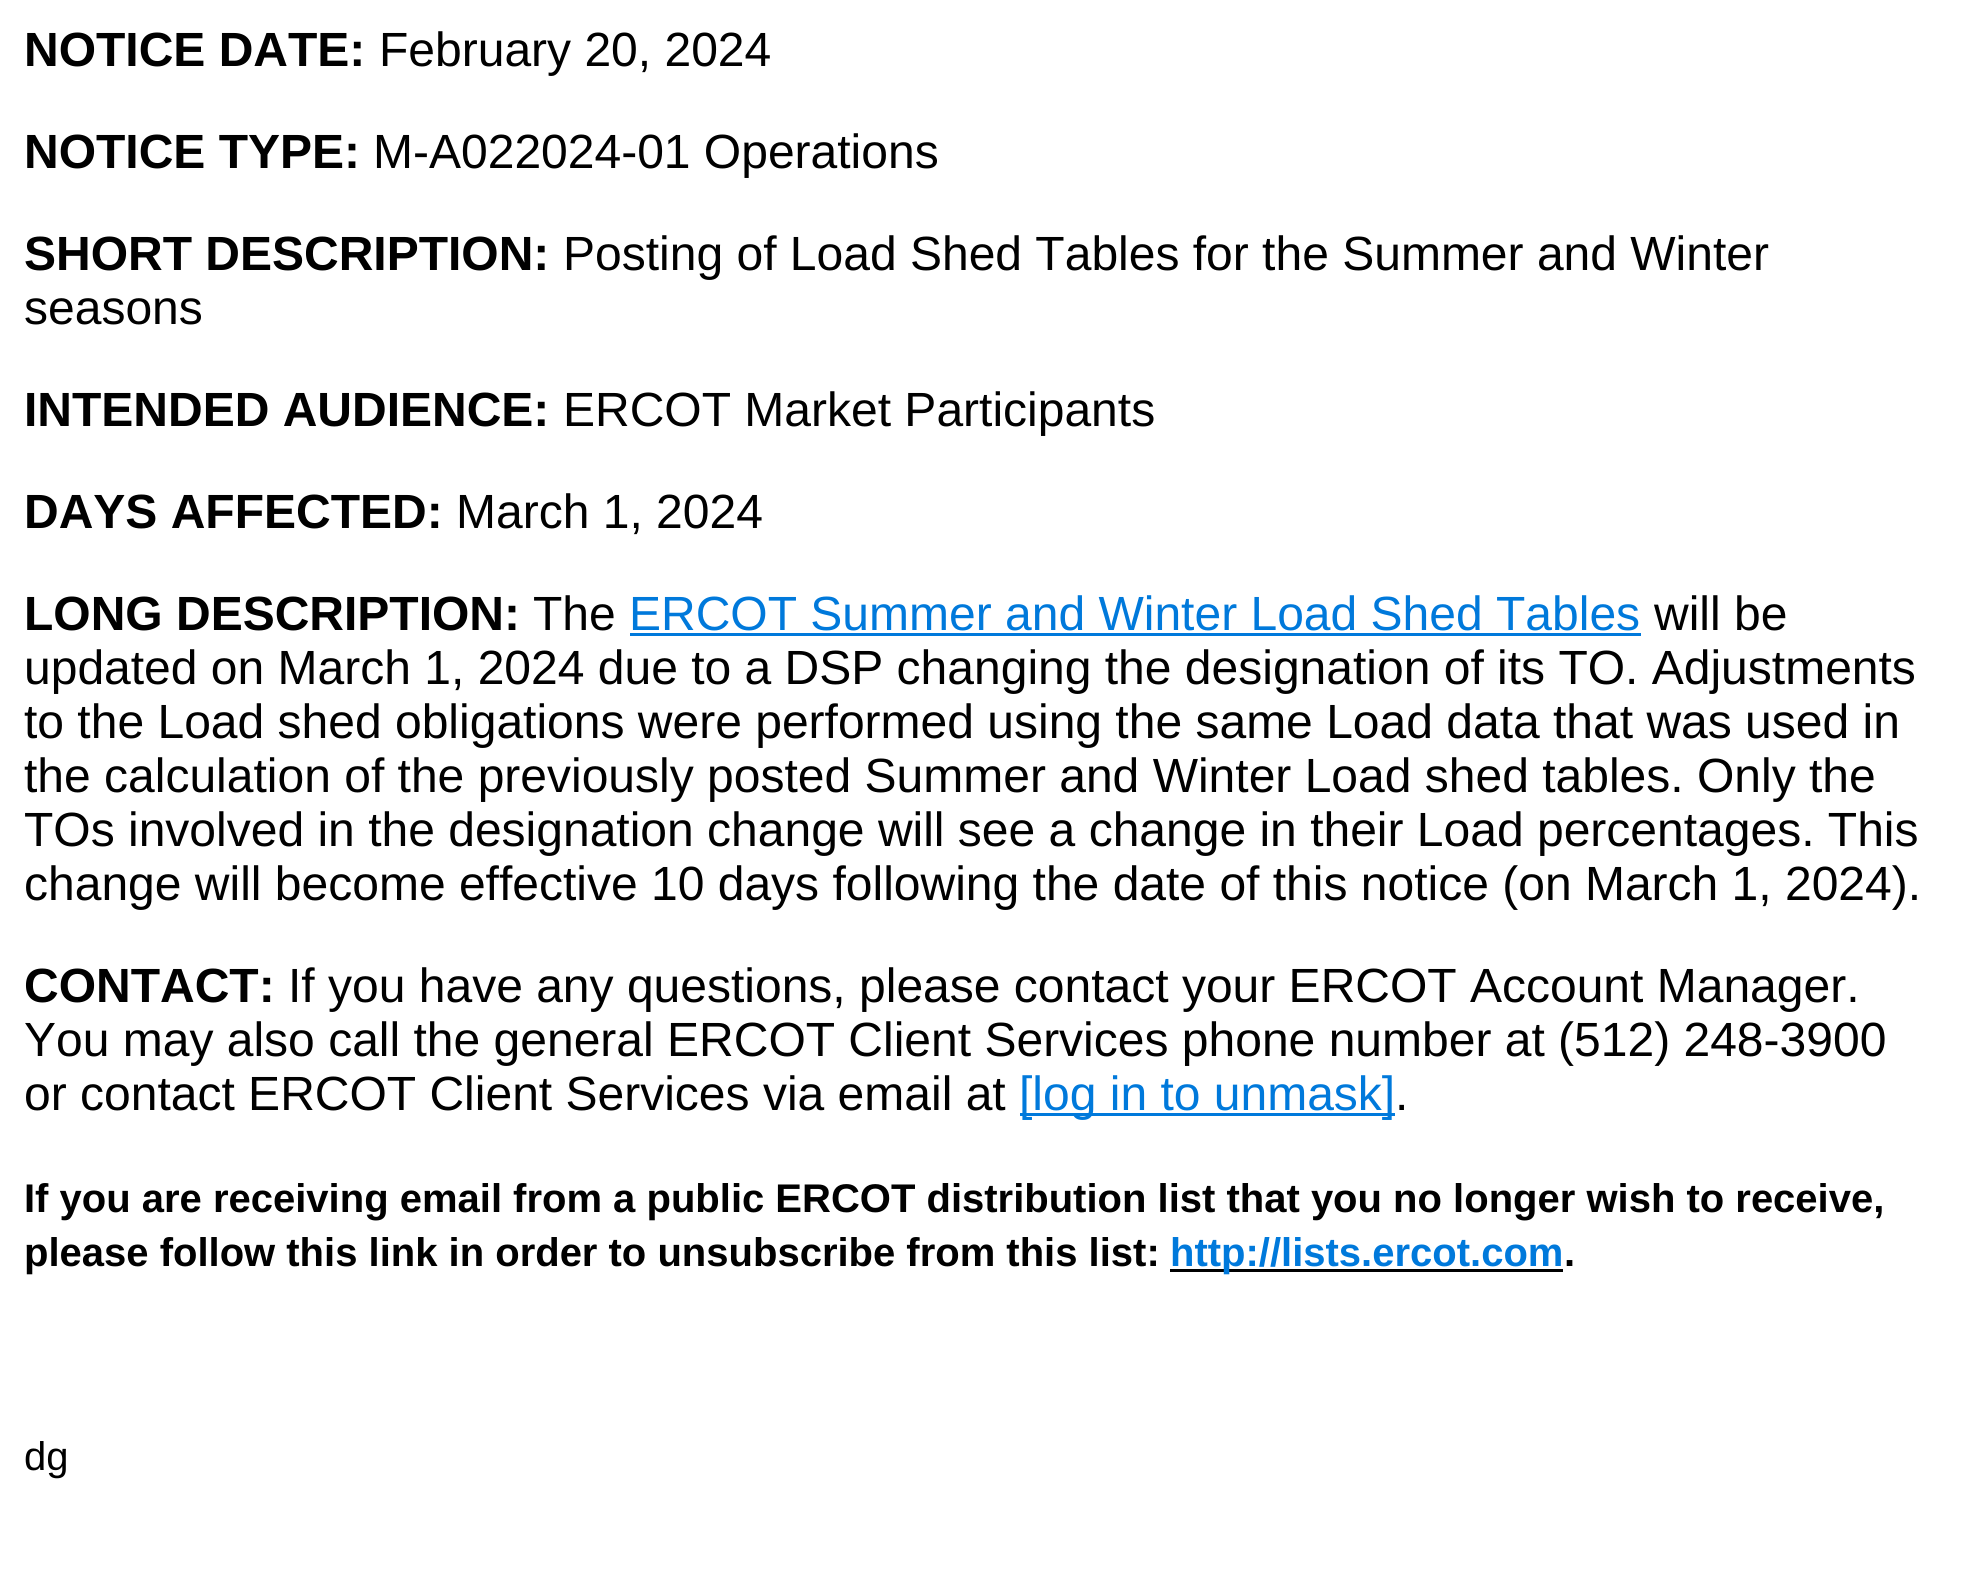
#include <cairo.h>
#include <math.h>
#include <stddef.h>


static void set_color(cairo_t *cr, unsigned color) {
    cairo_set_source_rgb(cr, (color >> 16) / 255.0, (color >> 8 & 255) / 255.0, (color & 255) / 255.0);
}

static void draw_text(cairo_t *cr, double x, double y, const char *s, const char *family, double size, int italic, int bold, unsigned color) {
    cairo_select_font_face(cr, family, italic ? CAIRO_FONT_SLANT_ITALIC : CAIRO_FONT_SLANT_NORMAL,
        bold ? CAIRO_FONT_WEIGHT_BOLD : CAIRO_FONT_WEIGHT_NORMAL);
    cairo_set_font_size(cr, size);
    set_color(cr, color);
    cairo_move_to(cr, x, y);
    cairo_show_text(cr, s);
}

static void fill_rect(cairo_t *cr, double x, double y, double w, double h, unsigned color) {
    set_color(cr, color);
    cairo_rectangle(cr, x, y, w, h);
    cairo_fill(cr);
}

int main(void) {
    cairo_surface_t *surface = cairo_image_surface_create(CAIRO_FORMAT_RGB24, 1965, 1579);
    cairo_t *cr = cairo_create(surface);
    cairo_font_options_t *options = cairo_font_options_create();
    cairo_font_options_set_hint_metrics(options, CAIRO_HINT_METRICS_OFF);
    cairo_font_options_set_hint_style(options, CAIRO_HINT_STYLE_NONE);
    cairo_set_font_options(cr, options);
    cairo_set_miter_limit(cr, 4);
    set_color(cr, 0xFFFFFF);
    cairo_paint(cr);
    draw_text(cr, 24, 66, "NOTICE DATE:", "Liberation Sans", 48, 0, 1, 0x000000);
    draw_text(cr, 379, 66, "February 20, 2024", "Liberation Sans", 48, 0, 0, 0x000000);
    draw_text(cr, 24, 168, "NOTICE TYPE:", "Liberation Sans", 48, 0, 1, 0x000000);
    draw_text(cr, 373, 168, "M-A022024-01 Operations", "Liberation Sans", 48, 0, 0, 0x000000);
    draw_text(cr, 24, 270, "SHORT DESCRIPTION:", "Liberation Sans", 48, 0, 1, 0x000000);
    draw_text(cr, 563, 270, "Posting of Load Shed Tables for the Summer and Winter", "Liberation Sans", 48, 0, 0, 0x000000);
    draw_text(cr, 24, 324, "seasons", "Liberation Sans", 48, 0, 0, 0x000000);
    draw_text(cr, 24, 426, "INTENDED AUDIENCE:", "Liberation Sans", 48, 0, 1, 0x000000);
    draw_text(cr, 563, 426, "ERCOT Market Participants", "Liberation Sans", 48, 0, 0, 0x000000);
    draw_text(cr, 24, 528, "DAYS AFFECTED:", "Liberation Sans", 48, 0, 1, 0x000000);
    draw_text(cr, 456, 528, "March 1, 2024", "Liberation Sans", 48, 0, 0, 0x000000);
    draw_text(cr, 24, 630, "LONG DESCRIPTION:", "Liberation Sans", 48, 0, 1, 0x000000);
    draw_text(cr, 533, 630, "The", "Liberation Sans", 48, 0, 0, 0x000000);
    draw_text(cr, 629, 630, "ERCOT Summer and Winter Load Shed Tables", "Liberation Sans", 48, 0, 0, 0x0079DB);
    fill_rect(cr, 630, 633, 1011, 3, 0x0079DB);
    draw_text(cr, 1654, 630, "will be", "Liberation Sans", 48, 0, 0, 0x000000);
    draw_text(cr, 24, 684, "updated on March 1, 2024 due to a DSP changing the designation of its TO. Adjustments", "Liberation Sans", 48, 0, 0, 0x000000);
    draw_text(cr, 24, 738, "to the Load shed obligations were performed using the same Load data that was used in", "Liberation Sans", 48, 0, 0, 0x000000);
    draw_text(cr, 24, 792, "the calculation of the previously posted Summer and Winter Load shed tables. Only the", "Liberation Sans", 48, 0, 0, 0x000000);
    draw_text(cr, 24, 846, "TOs involved in the designation change will see a change in their Load percentages. This", "Liberation Sans", 48, 0, 0, 0x000000);
    draw_text(cr, 24, 900, "change will become effective 10 days following the date of this notice (on March 1, 2024).", "Liberation Sans", 48, 0, 0, 0x000000);
    draw_text(cr, 24, 1002, "CONTACT:", "Liberation Sans", 48, 0, 1, 0x000000);
    draw_text(cr, 288, 1002, "If you have any questions, please contact your ERCOT Account Manager.", "Liberation Sans", 48, 0, 0, 0x000000);
    draw_text(cr, 24, 1056, "You may also call the general ERCOT Client Services phone number at (512) 248-3900", "Liberation Sans", 48, 0, 0, 0x000000);
    draw_text(cr, 24, 1110, "or contact ERCOT Client Services via email at", "Liberation Sans", 48, 0, 0, 0x000000);
    fill_rect(cr, 1020, 1113, 375, 3, 0x0079DB);
    draw_text(cr, 1019, 1110, "[log in to unmask]", "Liberation Sans", 48, 0, 0, 0x0079DB);
    draw_text(cr, 1395, 1110, ".", "Liberation Sans", 48, 0, 0, 0x000000);
    draw_text(cr, 24, 1212, "If you are receiving email from a public ERCOT distribution list that you no longer wish to receive,", "Liberation Sans", 40, 0, 1, 0x000000);
    draw_text(cr, 24, 1266, "please follow this link in order to unsubscribe from this list:", "Liberation Sans", 40, 0, 1, 0x000000);
    fill_rect(cr, 1170, 1269, 393, 3, 0x000000);
    draw_text(cr, 1170, 1266, "http://lists.ercot.com", "Liberation Sans", 40, 0, 1, 0x0079DB);
    draw_text(cr, 1564, 1266, ".", "Liberation Sans", 40, 0, 1, 0x000000);
    draw_text(cr, 24, 1470, "dg", "Liberation Sans", 40, 0, 0, 0x000000);
    cairo_surface_write_to_png(surface, "output.png");
    cairo_font_options_destroy(options);
    cairo_destroy(cr);
    cairo_surface_destroy(surface);
    return 0;
}
